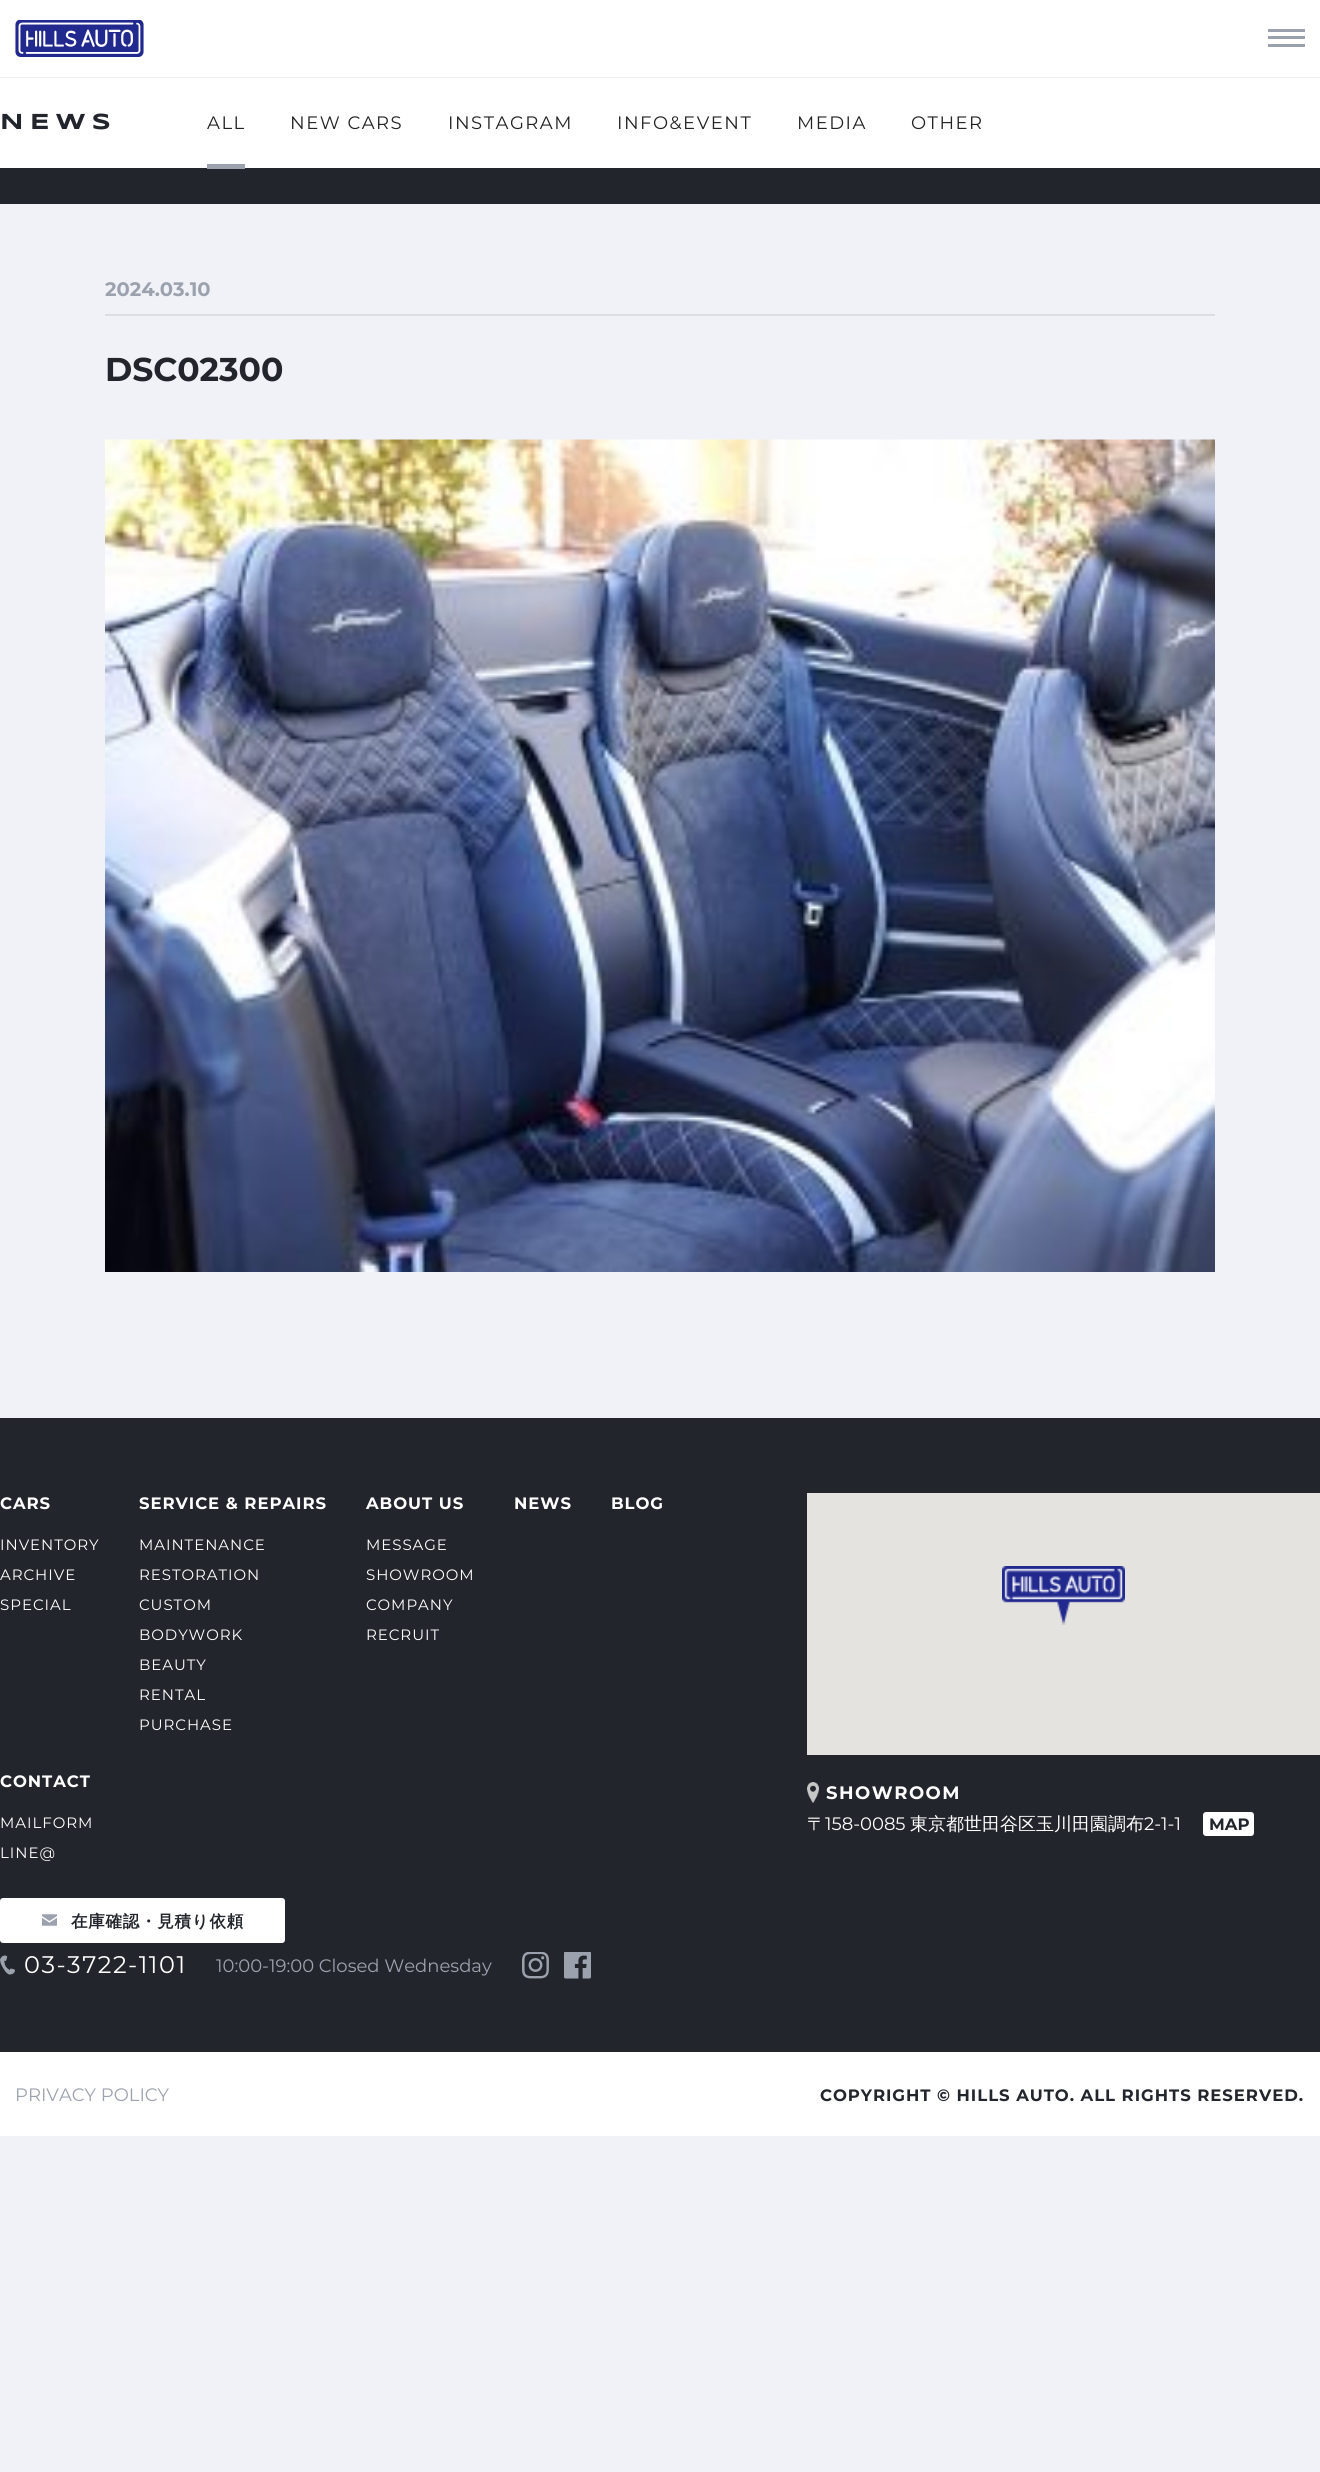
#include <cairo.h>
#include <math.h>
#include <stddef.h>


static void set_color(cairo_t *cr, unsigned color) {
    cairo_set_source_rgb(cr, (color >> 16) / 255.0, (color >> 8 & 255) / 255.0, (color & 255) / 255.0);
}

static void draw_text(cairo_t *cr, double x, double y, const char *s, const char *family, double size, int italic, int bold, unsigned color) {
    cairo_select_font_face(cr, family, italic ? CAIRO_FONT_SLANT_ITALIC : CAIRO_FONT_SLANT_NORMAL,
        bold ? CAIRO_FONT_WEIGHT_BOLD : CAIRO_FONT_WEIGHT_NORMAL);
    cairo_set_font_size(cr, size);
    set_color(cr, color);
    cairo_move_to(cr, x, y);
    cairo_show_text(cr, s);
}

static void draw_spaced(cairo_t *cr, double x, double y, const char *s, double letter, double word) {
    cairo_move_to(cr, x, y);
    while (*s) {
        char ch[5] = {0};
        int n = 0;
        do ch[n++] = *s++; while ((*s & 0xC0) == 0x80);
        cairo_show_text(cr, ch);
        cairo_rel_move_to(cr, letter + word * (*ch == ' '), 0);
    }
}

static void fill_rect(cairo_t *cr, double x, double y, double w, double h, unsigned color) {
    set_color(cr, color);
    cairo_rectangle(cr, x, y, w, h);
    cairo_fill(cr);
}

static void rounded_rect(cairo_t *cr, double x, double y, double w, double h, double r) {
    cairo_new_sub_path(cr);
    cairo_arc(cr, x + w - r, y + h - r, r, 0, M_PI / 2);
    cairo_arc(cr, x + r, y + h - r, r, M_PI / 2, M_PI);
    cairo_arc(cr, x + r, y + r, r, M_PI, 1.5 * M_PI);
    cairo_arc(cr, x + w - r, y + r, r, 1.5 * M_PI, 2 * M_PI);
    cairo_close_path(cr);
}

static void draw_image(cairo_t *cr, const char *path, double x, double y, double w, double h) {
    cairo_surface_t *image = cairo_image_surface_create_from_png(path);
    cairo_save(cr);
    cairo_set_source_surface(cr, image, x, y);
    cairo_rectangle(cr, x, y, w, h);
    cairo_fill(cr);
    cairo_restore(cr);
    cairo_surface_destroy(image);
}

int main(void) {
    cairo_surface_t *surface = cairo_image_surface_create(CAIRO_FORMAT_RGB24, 1320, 2472);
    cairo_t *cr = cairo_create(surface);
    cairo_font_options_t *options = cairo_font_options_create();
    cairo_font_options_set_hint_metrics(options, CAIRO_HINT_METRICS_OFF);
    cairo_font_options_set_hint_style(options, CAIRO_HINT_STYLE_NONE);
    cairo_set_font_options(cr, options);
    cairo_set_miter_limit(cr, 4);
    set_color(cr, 0xF0F2F7);
    cairo_paint(cr);
    fill_rect(cr, 0, 0, 1320, 77, 0xFFFFFF);
    draw_image(cr, "assets/img1.png", 15, 20, 129, 37);
    fill_rect(cr, 1268, 29, 37, 3, 0x9CA2AD);
    fill_rect(cr, 1268, 36, 37, 3, 0x9CA2AD);
    fill_rect(cr, 1268, 44, 37, 3, 0x9CA2AD);
    fill_rect(cr, 0, 77, 1320, 1, 0xEBEEF4);
    fill_rect(cr, 0, 78, 1320, 90, 0xFFFFFF);
    cairo_select_font_face(cr, "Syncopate", CAIRO_FONT_SLANT_NORMAL, CAIRO_FONT_WEIGHT_BOLD);
    cairo_set_font_size(cr, 22.5);
    set_color(cr, 0x22252B);
    draw_spaced(cr, 0, 129, "NEWS", 6.5, 0);
    cairo_select_font_face(cr, "Montserrat", CAIRO_FONT_SLANT_NORMAL, CAIRO_FONT_WEIGHT_NORMAL);
    cairo_set_font_size(cr, 18);
    set_color(cr, 0x222222);
    draw_spaced(cr, 207, 129, "ALL", 1.5, 0);
    fill_rect(cr, 0, 168, 1320, 36, 0x22252B);
    fill_rect(cr, 207, 164, 38, 5, 0x9CA2AD);
    set_color(cr, 0x222222);
    draw_spaced(cr, 290, 129, "NEW CARS", 1.5, 0);
    draw_spaced(cr, 448, 129, "INSTAGRAM", 1.5, 0);
    draw_spaced(cr, 617, 129, "INFO&EVENT", 1.5, 0);
    draw_spaced(cr, 797, 129, "MEDIA", 1.5, 0);
    draw_spaced(cr, 911, 129, "OTHER", 1.5, 0);
    draw_text(cr, 105, 296, "2024.03.10", "Montserrat", 19.5, 0, 1, 0x9CA2AD);
    fill_rect(cr, 105, 314, 1110, 2, 0xDADEE5);
    draw_text(cr, 105, 381, "DSC02300", "Montserrat", 33, 0, 1, 0x22252B);
    draw_image(cr, "assets/img2.png", 105, 439, 1110, 833);
    fill_rect(cr, 0, 1418, 1320, 634, 0x22252B);
    cairo_set_font_size(cr, 16.5);
    set_color(cr, 0xFFFFFF);
    draw_spaced(cr, 0, 1509, "CARS", 0.95, 0);
    cairo_select_font_face(cr, "Montserrat", CAIRO_FONT_SLANT_NORMAL, CAIRO_FONT_WEIGHT_NORMAL);
    cairo_set_font_size(cr, 15);
    draw_spaced(cr, 0, 1550, "INVENTORY", 0.95, 0);
    draw_spaced(cr, 0, 1580, "ARCHIVE", 0.95, 0);
    draw_spaced(cr, 0, 1610, "SPECIAL", 0.95, 0);
    cairo_select_font_face(cr, "Montserrat", CAIRO_FONT_SLANT_NORMAL, CAIRO_FONT_WEIGHT_BOLD);
    cairo_set_font_size(cr, 16.5);
    draw_spaced(cr, 139, 1509, "SERVICE & REPAIRS", 0.95, 0);
    cairo_select_font_face(cr, "Montserrat", CAIRO_FONT_SLANT_NORMAL, CAIRO_FONT_WEIGHT_NORMAL);
    cairo_set_font_size(cr, 15);
    draw_spaced(cr, 139, 1550, "MAINTENANCE", 0.95, 0);
    draw_spaced(cr, 139, 1580, "RESTORATION", 0.95, 0);
    draw_spaced(cr, 139, 1610, "CUSTOM", 0.95, 0);
    draw_spaced(cr, 139, 1640, "BODYWORK", 0.95, 0);
    draw_spaced(cr, 139, 1670, "BEAUTY", 0.95, 0);
    draw_spaced(cr, 139, 1700, "RENTAL", 0.95, 0);
    draw_spaced(cr, 139, 1730, "PURCHASE", 0.95, 0);
    cairo_select_font_face(cr, "Montserrat", CAIRO_FONT_SLANT_NORMAL, CAIRO_FONT_WEIGHT_BOLD);
    cairo_set_font_size(cr, 16.5);
    draw_spaced(cr, 366, 1509, "ABOUT US", 0.95, 0);
    cairo_select_font_face(cr, "Montserrat", CAIRO_FONT_SLANT_NORMAL, CAIRO_FONT_WEIGHT_NORMAL);
    cairo_set_font_size(cr, 15);
    draw_spaced(cr, 366, 1550, "MESSAGE", 0.95, 0);
    draw_spaced(cr, 366, 1580, "SHOWROOM", 0.95, 0);
    draw_spaced(cr, 366, 1610, "COMPANY", 0.95, 0);
    draw_spaced(cr, 366, 1640, "RECRUIT", 0.95, 0);
    cairo_select_font_face(cr, "Montserrat", CAIRO_FONT_SLANT_NORMAL, CAIRO_FONT_WEIGHT_BOLD);
    cairo_set_font_size(cr, 16.5);
    draw_spaced(cr, 514, 1509, "NEWS", 0.95, 0);
    draw_spaced(cr, 611, 1509, "BLOG", 0.95, 0);
    draw_spaced(cr, 0, 1787, "CONTACT", 0.95, 0);
    cairo_select_font_face(cr, "Montserrat", CAIRO_FONT_SLANT_NORMAL, CAIRO_FONT_WEIGHT_NORMAL);
    cairo_set_font_size(cr, 15);
    draw_spaced(cr, 0, 1828, "MAILFORM", 0.95, 0);
    draw_spaced(cr, 0, 1858, "LINE@", 0.95, 0);
    rounded_rect(cr, 0, 1898, 285, 45, 3);
    cairo_fill(cr);
    draw_image(cr, "assets/img3.png", 42, 1914, 15, 12);
    cairo_select_font_face(cr, "WenQuanYi Zen Hei", CAIRO_FONT_SLANT_NORMAL, CAIRO_FONT_WEIGHT_BOLD);
    cairo_set_font_size(cr, 16.5);
    set_color(cr, 0x22252B);
    draw_spaced(cr, 71, 1927, "在庫確認・見積り依頼", 0.75, 0);
    draw_image(cr, "assets/img4.png", 0, 1955, 15, 20);
    cairo_select_font_face(cr, "Montserrat", CAIRO_FONT_SLANT_NORMAL, CAIRO_FONT_WEIGHT_NORMAL);
    cairo_set_font_size(cr, 24);
    set_color(cr, 0xFFFFFF);
    draw_spaced(cr, 24, 1973, "03-3722-1101", 1.5, 0);
    draw_text(cr, 216, 1972, "10:00-19:00 Closed Wednesday", "Montserrat", 18, 0, 0, 0x9CA2AD);
    draw_image(cr, "assets/img5.png", 522, 1952, 27, 27);
    draw_image(cr, "assets/img6.png", 564, 1952, 27, 27);
    fill_rect(cr, 807, 1493, 513, 262, 0xE5E3DF);
    draw_image(cr, "assets/img7.png", 1002, 1566, 123, 59);
    draw_image(cr, "assets/img8.png", 807, 1782, 12, 21);
    cairo_select_font_face(cr, "Montserrat", CAIRO_FONT_SLANT_NORMAL, CAIRO_FONT_WEIGHT_BOLD);
    set_color(cr, 0xFFFFFF);
    draw_spaced(cr, 826, 1799, "SHOWROOM", 1.5, 0);
    draw_text(cr, 807, 1830, "〒", "WenQuanYi Zen Hei Medium", 18, 0, 0, 0xFFFFFF);
    draw_text(cr, 825, 1830, "158-0085", "Montserrat", 18, 0, 0, 0xFFFFFF);
    draw_text(cr, 910, 1830, "東京都世田谷区玉川田園調布", "WenQuanYi Zen Hei Medium", 18, 0, 0, 0xFFFFFF);
    draw_text(cr, 1144, 1830, "2-1-1", "Montserrat", 18, 0, 0, 0xFFFFFF);
    rounded_rect(cr, 1203, 1812, 51, 24, 3);
    cairo_fill(cr);
    draw_text(cr, 1209, 1830, "MAP", "Montserrat", 16.5, 0, 1, 0x22252B);
    fill_rect(cr, 0, 2052, 1320, 84, 0xFFFFFF);
    draw_text(cr, 15, 2101, "PRIVACY POLICY", "Montserrat", 18, 0, 0, 0x9CA2AD);
    cairo_select_font_face(cr, "Montserrat", CAIRO_FONT_SLANT_NORMAL, CAIRO_FONT_WEIGHT_BOLD);
    cairo_set_font_size(cr, 16.5);
    set_color(cr, 0x22252B);
    draw_spaced(cr, 820, 2101, "COPYRIGHT © HILLS AUTO. ALL RIGHTS RESERVED.", 0.95, 0);
    cairo_surface_write_to_png(surface, "output.png");
    cairo_font_options_destroy(options);
    cairo_destroy(cr);
    cairo_surface_destroy(surface);
    return 0;
}
